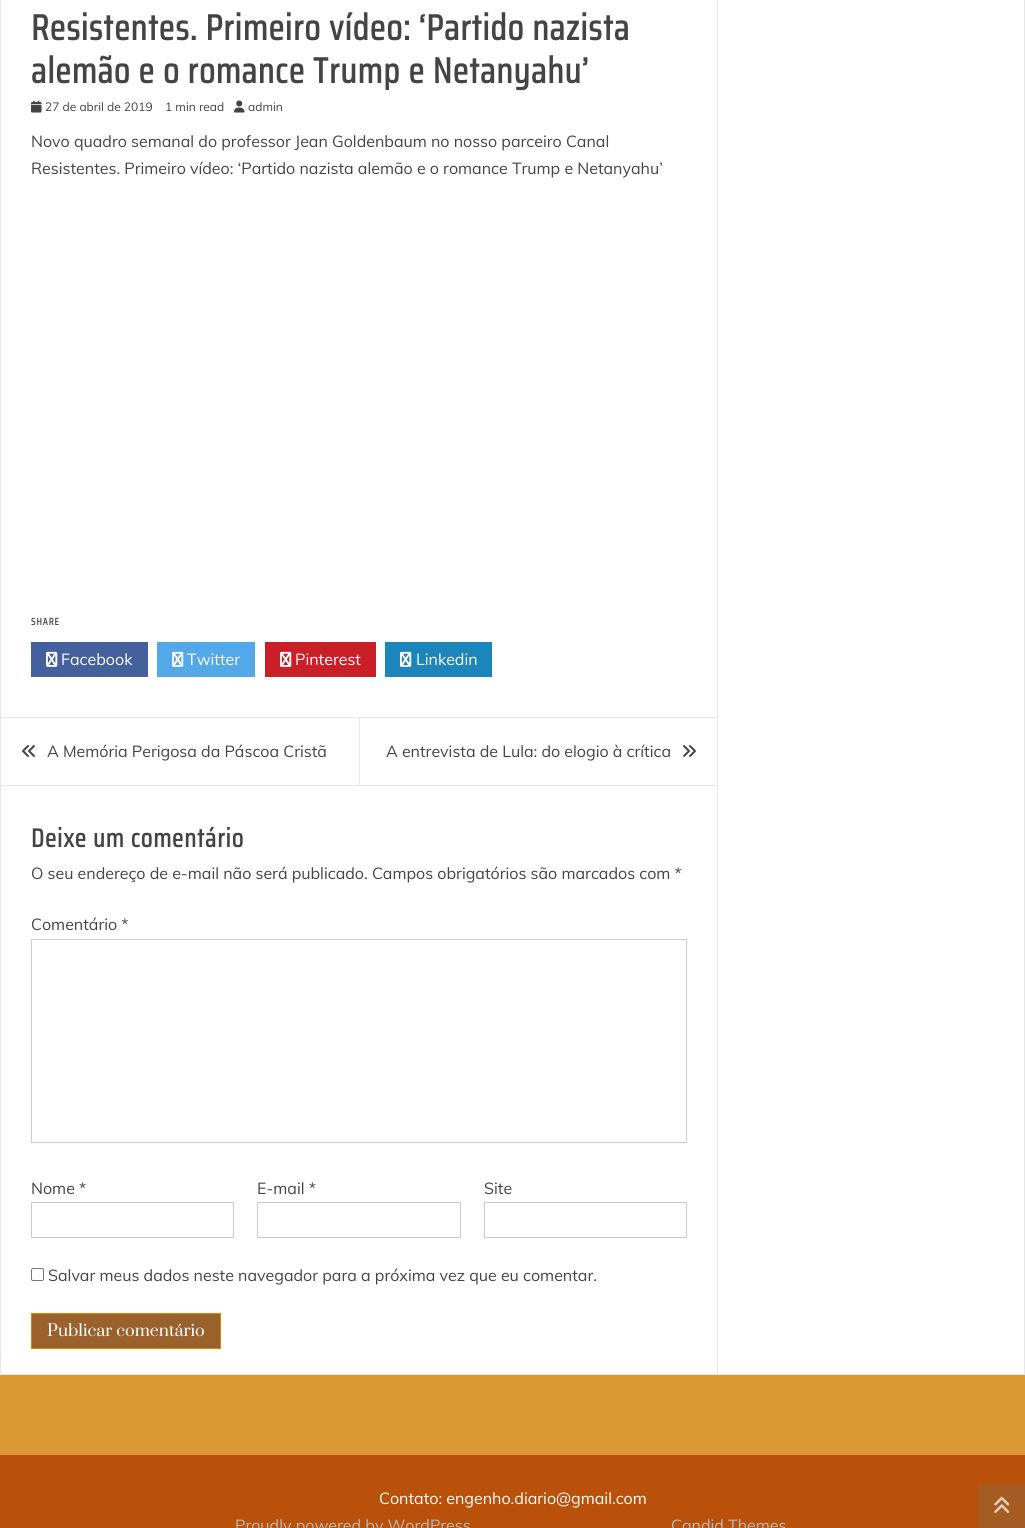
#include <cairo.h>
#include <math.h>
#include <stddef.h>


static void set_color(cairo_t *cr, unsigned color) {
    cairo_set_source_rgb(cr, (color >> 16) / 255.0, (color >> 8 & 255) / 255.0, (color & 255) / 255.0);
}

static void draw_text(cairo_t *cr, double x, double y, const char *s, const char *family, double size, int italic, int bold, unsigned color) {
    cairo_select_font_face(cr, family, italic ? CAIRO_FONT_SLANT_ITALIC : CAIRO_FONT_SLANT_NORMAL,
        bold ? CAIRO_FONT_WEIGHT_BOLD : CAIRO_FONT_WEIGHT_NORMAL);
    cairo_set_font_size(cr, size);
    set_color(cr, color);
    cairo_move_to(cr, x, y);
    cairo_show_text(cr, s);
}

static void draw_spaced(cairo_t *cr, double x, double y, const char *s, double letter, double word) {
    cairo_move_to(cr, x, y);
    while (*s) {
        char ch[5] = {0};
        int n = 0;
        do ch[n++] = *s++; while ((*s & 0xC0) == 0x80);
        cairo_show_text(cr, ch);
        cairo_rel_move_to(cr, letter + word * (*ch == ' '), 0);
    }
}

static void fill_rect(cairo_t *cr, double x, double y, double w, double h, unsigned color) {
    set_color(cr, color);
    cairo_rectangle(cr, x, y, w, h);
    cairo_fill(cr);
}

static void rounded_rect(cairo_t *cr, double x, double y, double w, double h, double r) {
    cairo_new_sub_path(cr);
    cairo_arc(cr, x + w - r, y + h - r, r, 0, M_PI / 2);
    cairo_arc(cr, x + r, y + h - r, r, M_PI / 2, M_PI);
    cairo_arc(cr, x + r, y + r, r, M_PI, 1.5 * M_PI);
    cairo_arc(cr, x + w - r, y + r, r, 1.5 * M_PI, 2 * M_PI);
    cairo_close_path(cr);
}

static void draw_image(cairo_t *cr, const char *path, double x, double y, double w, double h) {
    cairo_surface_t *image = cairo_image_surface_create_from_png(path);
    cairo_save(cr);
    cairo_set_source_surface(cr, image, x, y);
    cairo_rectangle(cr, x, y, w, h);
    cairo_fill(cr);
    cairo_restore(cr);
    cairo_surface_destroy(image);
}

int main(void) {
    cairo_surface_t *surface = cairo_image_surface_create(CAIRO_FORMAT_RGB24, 1025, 1528);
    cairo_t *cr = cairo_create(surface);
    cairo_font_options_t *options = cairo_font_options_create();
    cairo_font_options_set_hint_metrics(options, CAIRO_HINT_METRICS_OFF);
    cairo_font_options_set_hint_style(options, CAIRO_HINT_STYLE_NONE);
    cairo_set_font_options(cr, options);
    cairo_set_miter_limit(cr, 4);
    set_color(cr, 0xFFFFFF);
    cairo_paint(cr);
    cairo_rectangle(cr, 0.5, -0.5, 1024, 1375);
    set_color(cr, 0xE6E6E6);
    cairo_set_line_width(cr, 1);
    cairo_stroke(cr);
    cairo_select_font_face(cr, "Saira Condensed", CAIRO_FONT_SLANT_NORMAL, CAIRO_FONT_WEIGHT_BOLD);
    cairo_set_font_size(cr, 36);
    set_color(cr, 0x444444);
    draw_spaced(cr, 31, 40, "Resistentes. Primeiro vídeo: ‘Partido nazista", 1, 0);
    draw_spaced(cr, 31, 83, "alemão e o romance Trump e Netanyahu’", 1, 0);
    draw_image(cr, "assets/img1.png", 31, 100, 11, 13);
    draw_text(cr, 45, 111, "27 de abril de 2019", "Muli", 12, 0, 0, 0x444444);
    draw_text(cr, 165, 111, "1 min read", "Muli", 12, 0, 0, 0x444444);
    draw_image(cr, "assets/img2.png", 234, 100, 11, 13);
    draw_text(cr, 248, 111, "admin", "Muli", 12, 0, 0, 0x444444);
    draw_text(cr, 31, 147, "Novo quadro semanal do professor Jean Goldenbaum no nosso parceiro Canal", "Muli", 16, 0, 0, 0x444444);
    draw_text(cr, 31, 174, "Resistentes. Primeiro vídeo: ‘Partido nazista alemão e o romance Trump e Netanyahu’", "Muli", 16, 0, 0, 0x444444);
    cairo_select_font_face(cr, "Saira Condensed", CAIRO_FONT_SLANT_NORMAL, CAIRO_FONT_WEIGHT_BOLD);
    cairo_set_font_size(cr, 10);
    draw_spaced(cr, 31, 625, "SHARE", 1, 0);
    fill_rect(cr, 31, 642, 117, 35, 0x45619D);
    draw_image(cr, "assets/img3.png", 46, 651, 12, 16);
    draw_text(cr, 61, 665, "Facebook", "Muli", 16, 0, 0, 0xFFFFFF);
    fill_rect(cr, 157, 642, 98, 35, 0x53A8EA);
    draw_image(cr, "assets/img4.png", 172, 651, 12, 16);
    draw_text(cr, 187, 665, "Twitter", "Muli", 16, 0, 0, 0xFFFFFF);
    fill_rect(cr, 265, 642, 111, 35, 0xCA1F26);
    draw_image(cr, "assets/img5.png", 280, 651, 12, 16);
    draw_text(cr, 295, 665, "Pinterest", "Muli", 16, 0, 0, 0xFFFFFF);
    fill_rect(cr, 385, 642, 107, 35, 0x1B85BC);
    draw_image(cr, "assets/img6.png", 400, 651, 12, 16);
    draw_text(cr, 416, 665, "Linkedin", "Muli", 16, 0, 0, 0xFFFFFF);
    fill_rect(cr, 1, 717, 716, 1, 0xE6E6E6);
    draw_image(cr, "assets/img7.png", 22, 745, 13, 12);
    draw_text(cr, 47, 757, "A Memória Perigosa da Páscoa Cristã", "Muli", 16, 0, 0, 0x444444);
    fill_rect(cr, 359, 718, 1, 67, 0xE6E6E6);
    draw_text(cr, 386, 757, "A entrevista de Lula: do elogio à crítica", "Muli", 16, 0, 0, 0x444444);
    draw_image(cr, "assets/img8.png", 683, 745, 13, 12);
    fill_rect(cr, 1, 785, 716, 1, 0xE6E6E6);
    cairo_select_font_face(cr, "Saira Condensed", CAIRO_FONT_SLANT_NORMAL, CAIRO_FONT_WEIGHT_BOLD);
    cairo_set_font_size(cr, 26);
    set_color(cr, 0x444444);
    draw_spaced(cr, 31, 847, "Deixe um comentário", 1, 0);
    draw_text(cr, 31, 879, "O seu endereço de e-mail não será publicado. Campos obrigatórios são marcados com *", "Muli", 16, 0, 0, 0x444444);
    draw_text(cr, 31, 930, "Comentário *", "Muli", 16, 0, 0, 0x444444);
    cairo_rectangle(cr, 31.5, 939.5, 655, 203);
    set_color(cr, 0xCCCCCC);
    cairo_stroke(cr);
    draw_text(cr, 31, 1194, "Nome *", "Muli", 16, 0, 0, 0x444444);
    cairo_rectangle(cr, 31.5, 1202.5, 202, 35);
    set_color(cr, 0xCCCCCC);
    cairo_stroke(cr);
    draw_text(cr, 257, 1194, "E-mail *", "Muli", 16, 0, 0, 0x444444);
    cairo_rectangle(cr, 257.5, 1202.5, 203, 35);
    set_color(cr, 0xCCCCCC);
    cairo_stroke(cr);
    draw_text(cr, 484, 1194, "Site", "Muli", 16, 0, 0, 0x444444);
    cairo_rectangle(cr, 484.5, 1202.5, 202, 35);
    set_color(cr, 0xCCCCCC);
    cairo_stroke(cr);
    rounded_rect(cr, 31.5, 1268.5, 12, 12, 1.5);
    set_color(cr, 0x767676);
    cairo_stroke(cr);
    draw_text(cr, 48, 1281, "Salvar meus dados neste navegador para a próxima vez que eu comentar.", "Muli", 16, 0, 0, 0x444444);
    set_color(cr, 0x9B612C);
    cairo_rectangle(cr, 31.5, 1313.5, 189, 35);
    cairo_fill_preserve(cr);
    set_color(cr, 0xDD8500);
    cairo_stroke(cr);
    draw_text(cr, 47, 1336, "Publicar comentário", "Prata", 16, 0, 0, 0xFFFFFF);
    fill_rect(cr, 717, 0, 1, 1374, 0xE6E6E6);
    fill_rect(cr, 0, 1375, 1025, 80, 0xDD9933);
    fill_rect(cr, 0, 1455, 1025, 73, 0xBA510B);
    draw_text(cr, 379, 1504, "Contato: engenho.diario@gmail.com", "Muli", 16, 0, 0, 0xFFFFFF);
    draw_text(cr, 235, 1531, "Proudly powered by WordPress", "Muli", 16, 0, 0, 0xBBBBBB);
    draw_text(cr, 671, 1531, "Candid Themes", "Muli", 16, 0, 0, 0xBBBBBB);
    fill_rect(cr, 978, 1484, 47, 44, 0xA45C22);
    draw_image(cr, "assets/img9.png", 994, 1496, 16, 17);
    cairo_surface_write_to_png(surface, "output.png");
    cairo_font_options_destroy(options);
    cairo_destroy(cr);
    cairo_surface_destroy(surface);
    return 0;
}
